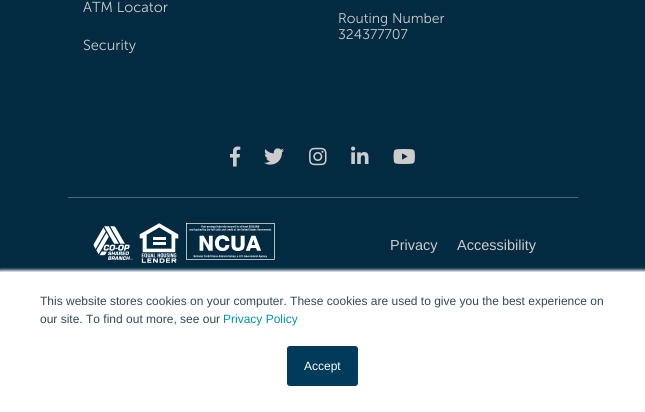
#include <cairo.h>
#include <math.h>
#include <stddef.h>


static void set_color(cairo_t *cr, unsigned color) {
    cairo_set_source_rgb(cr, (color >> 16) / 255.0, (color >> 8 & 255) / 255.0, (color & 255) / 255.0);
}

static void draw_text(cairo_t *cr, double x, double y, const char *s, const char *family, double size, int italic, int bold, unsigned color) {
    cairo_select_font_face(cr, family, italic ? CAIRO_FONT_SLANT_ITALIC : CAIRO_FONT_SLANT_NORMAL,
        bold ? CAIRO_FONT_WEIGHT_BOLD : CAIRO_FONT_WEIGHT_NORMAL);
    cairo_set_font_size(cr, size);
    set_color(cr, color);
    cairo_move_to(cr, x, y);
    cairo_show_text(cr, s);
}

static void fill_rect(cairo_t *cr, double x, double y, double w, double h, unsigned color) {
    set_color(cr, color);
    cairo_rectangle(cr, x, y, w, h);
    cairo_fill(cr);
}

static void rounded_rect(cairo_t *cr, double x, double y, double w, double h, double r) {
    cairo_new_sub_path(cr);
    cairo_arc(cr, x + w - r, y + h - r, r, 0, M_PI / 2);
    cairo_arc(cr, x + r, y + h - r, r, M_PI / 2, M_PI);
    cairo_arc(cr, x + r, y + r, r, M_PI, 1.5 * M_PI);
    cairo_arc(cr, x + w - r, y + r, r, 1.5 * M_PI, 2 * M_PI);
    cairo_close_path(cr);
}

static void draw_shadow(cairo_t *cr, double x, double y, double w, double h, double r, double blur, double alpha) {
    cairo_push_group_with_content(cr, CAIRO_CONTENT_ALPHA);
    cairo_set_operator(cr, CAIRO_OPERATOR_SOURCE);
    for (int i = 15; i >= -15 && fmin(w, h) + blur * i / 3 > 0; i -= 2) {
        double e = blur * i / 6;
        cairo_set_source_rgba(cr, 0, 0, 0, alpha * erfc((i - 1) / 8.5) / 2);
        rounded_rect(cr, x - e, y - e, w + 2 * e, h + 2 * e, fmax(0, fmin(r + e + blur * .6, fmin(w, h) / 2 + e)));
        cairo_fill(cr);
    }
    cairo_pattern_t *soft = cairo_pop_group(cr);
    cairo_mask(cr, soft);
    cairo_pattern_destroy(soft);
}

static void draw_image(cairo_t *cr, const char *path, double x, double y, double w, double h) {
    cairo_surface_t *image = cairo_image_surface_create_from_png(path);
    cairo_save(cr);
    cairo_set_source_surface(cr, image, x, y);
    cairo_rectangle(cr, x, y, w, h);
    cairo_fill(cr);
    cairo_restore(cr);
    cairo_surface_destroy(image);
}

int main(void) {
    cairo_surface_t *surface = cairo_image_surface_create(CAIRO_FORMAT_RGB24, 645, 412);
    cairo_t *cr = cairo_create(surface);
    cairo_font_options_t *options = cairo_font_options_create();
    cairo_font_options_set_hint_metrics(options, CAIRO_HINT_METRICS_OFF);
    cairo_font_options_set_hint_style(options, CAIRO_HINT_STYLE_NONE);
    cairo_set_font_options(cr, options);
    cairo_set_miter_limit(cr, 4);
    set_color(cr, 0x022A41);
    cairo_paint(cr);
    draw_text(cr, 83, 12, "ATM Locator", "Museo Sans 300 Light", 14.5, 0, 0, 0xCCCCCC);
    draw_text(cr, 83, 50, "Security", "Museo Sans 300 Light", 14.5, 0, 0, 0xCCCCCC);
    draw_text(cr, 338, 23, "Routing Number", "Museo Sans 300 Light", 14, 0, 0, 0xCCCCCC);
    draw_text(cr, 338, 39, "324377707", "Museo Sans 300 Light", 14, 0, 0, 0xCCCCCC);
    draw_image(cr, "assets/img1.png", 230, 146, 11, 21);
    draw_image(cr, "assets/img2.png", 264, 148, 20, 17);
    draw_image(cr, "assets/img3.png", 309, 147, 18, 19);
    draw_image(cr, "assets/img4.png", 351, 146, 18, 18);
    draw_image(cr, "assets/img5.png", 393, 149, 22, 15);
    fill_rect(cr, 68, 197, 510, 1, 0x4A657C);
    draw_image(cr, "assets/img6.png", 93, 226, 40, 34);
    draw_image(cr, "assets/img7.png", 139, 223, 40, 40);
    draw_image(cr, "assets/img8.png", 186, 223, 89, 37);
    draw_text(cr, 390, 250, "Privacy", "Liberation Sans", 14.5, 0, 0, 0xCCCCCC);
    draw_text(cr, 457, 250, "Accessibility", "Liberation Sans", 14.5, 0, 0, 0xCCCCCC);
    set_color(cr, 0xEAF0F6);
    draw_shadow(cr, 0, 270, 645, 141, 0, 1.5, 1);
    fill_rect(cr, 0, 272, 645, 140, 0xFFFFFF);
    fill_rect(cr, 0, 271, 645, 1, 0xCBD6E2);
    draw_text(cr, 40, 305, "This website stores cookies on your computer. These cookies are used to give you the best experience on", "Liberation Sans", 12, 0, 0, 0x33475B);
    draw_text(cr, 40, 323, "our site. To find out more, see our", "Liberation Sans", 12, 0, 0, 0x33475B);
    draw_text(cr, 223, 323, "Privacy Policy", "Liberation Sans", 12, 0, 0, 0x0091AE);
    set_color(cr, 0x003B5C);
    rounded_rect(cr, 287.5, 346.5, 70, 39, 2.5);
    cairo_fill_preserve(cr);
    cairo_set_line_width(cr, 1);
    cairo_stroke(cr);
    draw_text(cr, 304, 370, "Accept", "Liberation Sans", 12, 0, 0, 0xFFFFFF);
    cairo_surface_write_to_png(surface, "output.png");
    cairo_font_options_destroy(options);
    cairo_destroy(cr);
    cairo_surface_destroy(surface);
    return 0;
}
